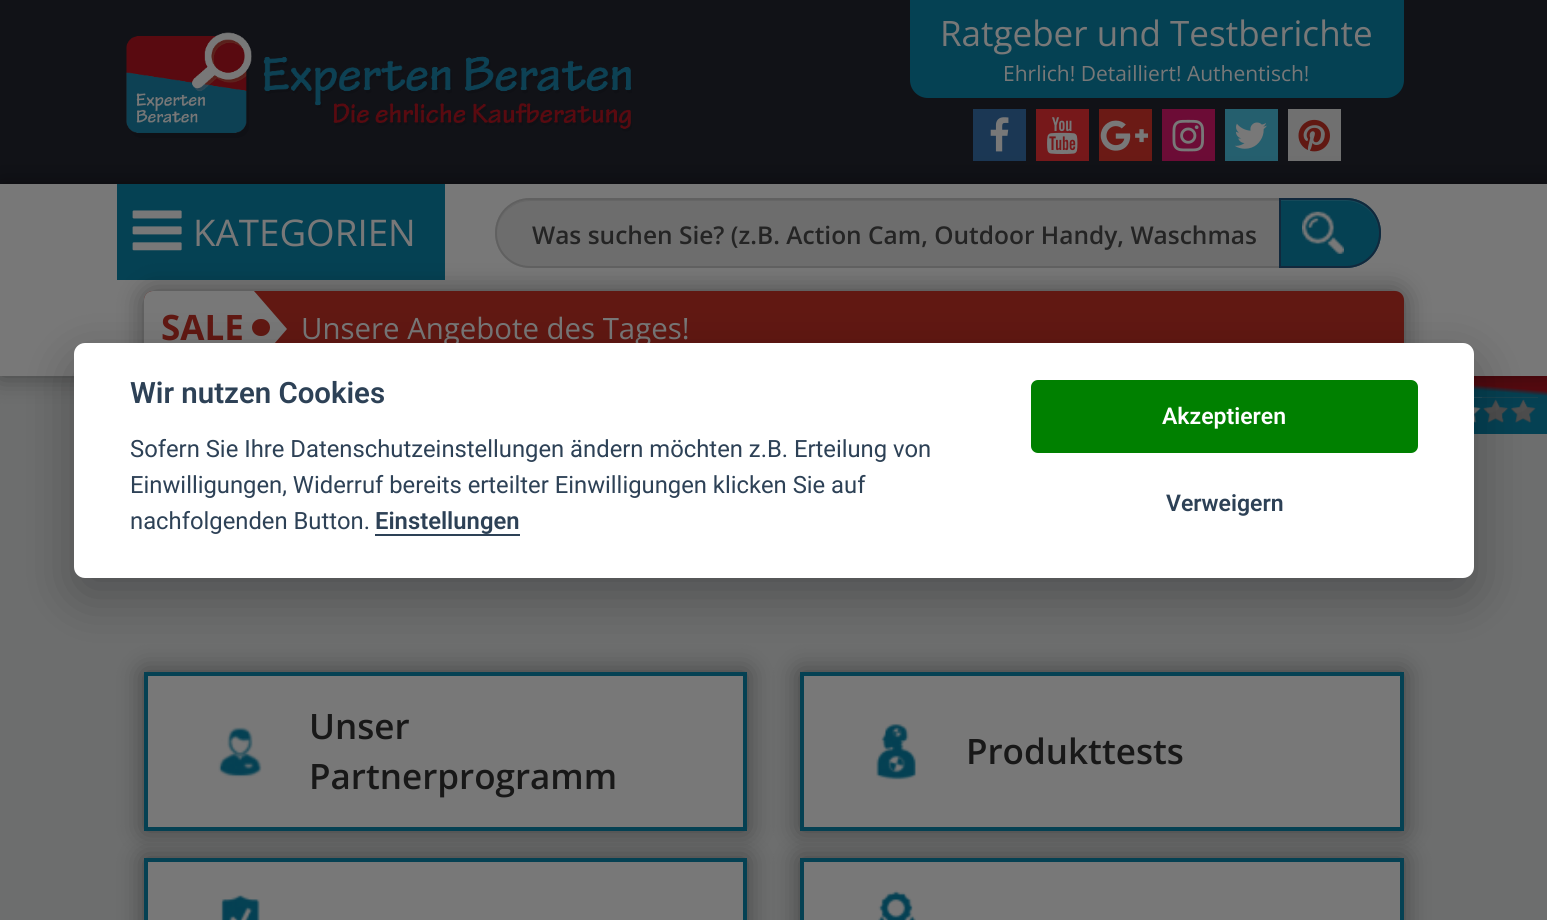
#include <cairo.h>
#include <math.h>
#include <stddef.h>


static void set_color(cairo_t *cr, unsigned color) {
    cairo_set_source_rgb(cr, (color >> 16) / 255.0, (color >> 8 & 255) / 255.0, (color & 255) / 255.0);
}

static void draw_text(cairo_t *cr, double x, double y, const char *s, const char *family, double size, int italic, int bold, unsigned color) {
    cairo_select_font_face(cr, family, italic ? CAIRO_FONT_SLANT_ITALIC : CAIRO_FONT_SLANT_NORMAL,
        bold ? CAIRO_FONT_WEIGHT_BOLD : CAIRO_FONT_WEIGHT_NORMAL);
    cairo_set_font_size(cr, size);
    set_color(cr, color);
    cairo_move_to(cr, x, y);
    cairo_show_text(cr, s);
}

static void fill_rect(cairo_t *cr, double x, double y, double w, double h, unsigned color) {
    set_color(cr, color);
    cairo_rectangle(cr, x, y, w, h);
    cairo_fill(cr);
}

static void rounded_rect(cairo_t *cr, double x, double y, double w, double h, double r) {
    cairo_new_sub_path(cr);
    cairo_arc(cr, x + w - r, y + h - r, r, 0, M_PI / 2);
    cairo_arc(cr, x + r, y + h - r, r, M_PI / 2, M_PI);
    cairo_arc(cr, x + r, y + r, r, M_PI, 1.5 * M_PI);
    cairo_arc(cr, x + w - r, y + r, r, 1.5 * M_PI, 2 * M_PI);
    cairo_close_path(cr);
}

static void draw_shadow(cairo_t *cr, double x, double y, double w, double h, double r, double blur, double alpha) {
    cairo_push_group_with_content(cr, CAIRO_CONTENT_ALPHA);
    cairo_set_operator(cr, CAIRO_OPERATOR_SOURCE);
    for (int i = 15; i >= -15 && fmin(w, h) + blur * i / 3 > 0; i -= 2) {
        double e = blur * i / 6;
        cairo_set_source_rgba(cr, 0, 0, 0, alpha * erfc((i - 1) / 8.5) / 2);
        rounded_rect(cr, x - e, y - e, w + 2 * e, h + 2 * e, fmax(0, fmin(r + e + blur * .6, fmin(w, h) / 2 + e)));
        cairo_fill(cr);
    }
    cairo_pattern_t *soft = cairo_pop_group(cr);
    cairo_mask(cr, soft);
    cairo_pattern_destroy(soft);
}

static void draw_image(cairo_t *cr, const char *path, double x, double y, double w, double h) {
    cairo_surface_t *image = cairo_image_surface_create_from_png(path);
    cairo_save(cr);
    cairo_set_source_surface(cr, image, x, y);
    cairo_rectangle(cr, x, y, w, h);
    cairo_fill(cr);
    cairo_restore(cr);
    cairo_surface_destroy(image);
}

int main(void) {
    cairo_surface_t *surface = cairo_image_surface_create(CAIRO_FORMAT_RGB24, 1547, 920);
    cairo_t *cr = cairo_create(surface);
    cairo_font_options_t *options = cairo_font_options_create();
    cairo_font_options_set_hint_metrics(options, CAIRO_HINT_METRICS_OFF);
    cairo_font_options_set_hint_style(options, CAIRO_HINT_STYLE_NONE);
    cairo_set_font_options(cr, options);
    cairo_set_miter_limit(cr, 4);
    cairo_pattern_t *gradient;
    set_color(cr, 0x6D6E6E);
    cairo_paint(cr);
    fill_rect(cr, 0, 0, 1547, 184, 0x111217);
    draw_image(cr, "assets/img1.png", 126, 32, 506, 106);
    set_color(cr, 0x054153);
    cairo_new_path(cr);
    cairo_move_to(cr, 910, 0);
    cairo_line_to(cr, 1404, 0);
    cairo_line_to(cr, 1404, 80);
    cairo_curve_to(cr, 1404, 90, 1396, 98, 1386, 98);
    cairo_line_to(cr, 928, 98);
    cairo_curve_to(cr, 918, 98, 910, 90, 910, 80);
    cairo_close_path(cr);
    cairo_fill(cr);
    draw_text(cr, 940, 46, "Ratgeber und Testberichte", "Open Sans", 35, 0, 0, 0x787878);
    draw_text(cr, 1003, 81, "Ehrlich! Detailliert! Authentisch!", "Open Sans", 21, 0, 0, 0x787878);
    fill_rect(cr, 973, 109, 53, 52, 0x1B3754);
    draw_image(cr, "assets/img2.png", 990, 117, 19, 35);
    fill_rect(cr, 1036, 109, 53, 52, 0x76181A);
    draw_image(cr, "assets/img3.png", 1047, 117, 31, 37);
    fill_rect(cr, 1099, 109, 53, 52, 0x6B1A15);
    draw_image(cr, "assets/img4.png", 1100, 120, 48, 31);
    fill_rect(cr, 1162, 109, 53, 52, 0x6C0C36);
    draw_image(cr, "assets/img5.png", 1172, 119, 32, 33);
    fill_rect(cr, 1225, 109, 53, 52, 0x255F6E);
    draw_image(cr, "assets/img6.png", 1234, 122, 33, 27);
    fill_rect(cr, 1288, 109, 53, 52, 0x707070);
    draw_image(cr, "assets/img7.png", 1298, 119, 32, 33);
    gradient = cairo_pattern_create_linear(1476, 270, 1461, 440);
    cairo_pattern_add_color_stop_rgba(gradient, 0.67, 0.349, 0.039, 0.063, 1);
    cairo_pattern_add_color_stop_rgba(gradient, 0.7, 0.02, 0.255, 0.325, 1);
    cairo_set_source(cr, gradient);
    cairo_pattern_destroy(gradient);
    cairo_rectangle(cr, 1474, 376, 73, 58);
    cairo_fill(cr);
    fill_rect(cr, 1482, 397, 56, 27, 0x505050);
    fill_rect(cr, 1474, 397, 8, 26, 0x787878);
    draw_image(cr, "assets/img10.png", 1474, 397, 64, 28);
    set_color(cr, 0x000000);
    draw_shadow(cr, 0, 184, 1547, 192, 0, 13, 0.4);
    fill_rect(cr, 0, 184, 1547, 192, 0x787878);
    fill_rect(cr, 117, 184, 328, 96, 0x054153);
    draw_image(cr, "assets/img8.png", 132, 210, 50, 41);
    draw_text(cr, 193, 246, "KATEGORIEN", "Open Sans", 36.75, 0, 0, 0x787878);
    set_color(cr, 0x000000);
    draw_shadow(cr, 144, 291, 1260, 75, 9, 13, 0.4);
    set_color(cr, 0x6D6D6D);
    cairo_new_path(cr);
    cairo_move_to(cr, 530, 198);
    cairo_line_to(cr, 1281, 198);
    cairo_line_to(cr, 1281, 268);
    cairo_line_to(cr, 530, 268);
    cairo_curve_to(cr, 510.5, 268, 495, 252.5, 495, 233);
    cairo_curve_to(cr, 495, 213.5, 510.5, 198, 530, 198);
    cairo_close_path(cr);
    cairo_fill(cr);
    set_color(cr, 0x656565);
    cairo_new_path(cr);
    cairo_move_to(cr, 530, 201);
    cairo_line_to(cr, 1279, 201);
    cairo_line_to(cr, 1279, 200);
    cairo_line_to(cr, 530, 200);
    cairo_curve_to(cr, 512, 200, 497, 215, 497, 234);
    cairo_curve_to(cr, 497, 216, 512, 201, 530, 201);
    cairo_close_path(cr);
    cairo_fill(cr);
    cairo_new_path(cr);
    cairo_move_to(cr, 530, 199);
    cairo_line_to(cr, 1280, 199);
    cairo_line_to(cr, 1280, 267);
    cairo_line_to(cr, 530, 267);
    cairo_curve_to(cr, 511, 267, 496, 252, 496, 233);
    cairo_curve_to(cr, 496, 214, 511, 199, 530, 199);
    cairo_close_path(cr);
    set_color(cr, 0x606060);
    cairo_stroke(cr);
    draw_text(cr, 532, 244, "Was suchen Sie? (z.B. Action Cam, Outdoor Handy, Waschmas", "Open Sans SemiBold", 24.5, 0, 0, 0x242424);
    set_color(cr, 0x054153);
    cairo_new_path(cr);
    cairo_move_to(cr, 1279, 198);
    cairo_line_to(cr, 1346, 198);
    cairo_curve_to(cr, 1365.5, 198, 1381, 213.5, 1381, 233);
    cairo_curve_to(cr, 1381, 252.5, 1365.5, 268, 1346, 268);
    cairo_line_to(cr, 1279, 268);
    cairo_close_path(cr);
    cairo_fill(cr);
    set_color(cr, 0x164959);
    cairo_new_path(cr);
    cairo_move_to(cr, 1281, 201);
    cairo_line_to(cr, 1346, 201);
    cairo_curve_to(cr, 1364, 201, 1379, 216, 1379, 234);
    cairo_line_to(cr, 1379, 233);
    cairo_curve_to(cr, 1379, 215, 1364, 200, 1346, 200);
    cairo_line_to(cr, 1281, 200);
    cairo_close_path(cr);
    cairo_fill(cr);
    cairo_new_path(cr);
    cairo_move_to(cr, 1280, 199);
    cairo_line_to(cr, 1346, 199);
    cairo_curve_to(cr, 1365, 199, 1380, 214, 1380, 233);
    cairo_curve_to(cr, 1380, 252, 1365, 267, 1346, 267);
    cairo_line_to(cr, 1280, 267);
    cairo_close_path(cr);
    set_color(cr, 0x11283C);
    cairo_stroke(cr);
    draw_image(cr, "assets/img9.png", 1302, 211, 42, 43);
    set_color(cr, 0x611812);
    rounded_rect(cr, 144, 291, 1260, 75, 9);
    cairo_fill(cr);
    set_color(cr, 0x787878);
    cairo_new_path(cr);
    cairo_move_to(cr, 153, 291);
    cairo_line_to(cr, 252, 291);
    cairo_line_to(cr, 252, 366);
    cairo_line_to(cr, 153, 366);
    cairo_curve_to(cr, 148, 366, 144, 362, 144, 357);
    cairo_line_to(cr, 144, 300);
    cairo_curve_to(cr, 144, 295, 148, 291, 153, 291);
    cairo_close_path(cr);
    cairo_fill(cr);
    draw_text(cr, 161, 340, "SALE", "Open Sans", 35, 0, 1, 0x611812);
    set_color(cr, 0x787878);
    cairo_new_path(cr);
    cairo_move_to(cr, 254, 291);
    cairo_line_to(cr, 287, 329);
    cairo_line_to(cr, 255, 366);
    cairo_line_to(cr, 252, 366);
    cairo_line_to(cr, 252, 291);
    cairo_close_path(cr);
    cairo_fill(cr);
    set_color(cr, 0x611812);
    rounded_rect(cr, 252, 319, 18, 17, 8.5);
    cairo_fill(cr);
    draw_text(cr, 301, 339, "Unsere Angebote des Tages!", "Open Sans", 29.4, 0, 0, 0x787878);
    set_color(cr, 0x000000);
    draw_shadow(cr, 144, 672, 603, 159, 0, 13, 0.4);
    set_color(cr, 0x787878);
    cairo_rectangle(cr, 146, 674, 599, 155);
    cairo_fill_preserve(cr);
    set_color(cr, 0x054153);
    cairo_set_line_width(cr, 4);
    cairo_stroke(cr);
    set_color(cr, 0x000000);
    draw_shadow(cr, 800, 672, 604, 159, 0, 13, 0.4);
    set_color(cr, 0x787878);
    cairo_rectangle(cr, 802, 674, 600, 155);
    cairo_fill_preserve(cr);
    set_color(cr, 0x054153);
    cairo_stroke(cr);
    set_color(cr, 0x020203);
    draw_shadow(cr, 74, 361, 1400, 234, 11, 26, 0.28);
    set_color(cr, 0xFFFFFF);
    rounded_rect(cr, 74, 343, 1400, 235, 11);
    cairo_fill(cr);
    draw_text(cr, 130, 403, "Wir nutzen Cookies", "Roboto SemiBold", 29.4, 0, 0, 0x2D4156);
    draw_text(cr, 130, 457, "Sofern Sie Ihre Datenschutzeinstellungen ändern möchten z.B. Erteilung von", "Roboto", 23.8, 0, 0, 0x2D4156);
    draw_text(cr, 130, 493, "Einwilligungen, Widerruf bereits erteilter Einwilligungen klicken Sie auf", "Roboto", 23.8, 0, 0, 0x2D4156);
    draw_text(cr, 130, 529, "nachfolgenden Button.", "Roboto", 23.8, 0, 0, 0x2D4156);
    draw_text(cr, 375, 529, "Einstellungen", "Roboto SemiBold", 23.8, 0, 0, 0x2D4156);
    fill_rect(cr, 375, 534, 145, 2, 0x2D4156);
    set_color(cr, 0x008000);
    rounded_rect(cr, 1031, 380, 387, 73, 7);
    cairo_fill(cr);
    draw_text(cr, 1162, 424, "Akzeptieren", "Roboto SemiBold", 23, 0, 0, 0xFFFFFF);
    draw_text(cr, 1166, 511, "Verweigern", "Roboto SemiBold", 23, 0, 0, 0x2D4156);
    draw_image(cr, "assets/img11.png", 218, 727, 44, 51);
    draw_text(cr, 309, 739, "Unser", "Open Sans SemiBold", 35, 0, 0, 0x181818);
    draw_text(cr, 309, 789, "Partnerprogramm", "Open Sans SemiBold", 35, 0, 0, 0x181818);
    draw_image(cr, "assets/img12.png", 876, 723, 40, 57);
    draw_text(cr, 966, 764, "Produkttests", "Open Sans SemiBold", 35, 0, 0, 0x181818);
    set_color(cr, 0x000000);
    draw_shadow(cr, 144, 858, 603, 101, 0, 13, 0.4);
    set_color(cr, 0x787878);
    cairo_rectangle(cr, 146, 860, 599, 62);
    cairo_fill_preserve(cr);
    set_color(cr, 0x054153);
    cairo_stroke(cr);
    draw_image(cr, "assets/img13.png", 220, 894, 40, 26);
    set_color(cr, 0x000000);
    draw_shadow(cr, 800, 858, 604, 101, 0, 13, 0.4);
    set_color(cr, 0x787878);
    cairo_rectangle(cr, 802, 860, 600, 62);
    cairo_fill_preserve(cr);
    set_color(cr, 0x054153);
    cairo_stroke(cr);
    draw_image(cr, "assets/img14.png", 878, 890, 38, 30);
    cairo_surface_write_to_png(surface, "output.png");
    cairo_font_options_destroy(options);
    cairo_destroy(cr);
    cairo_surface_destroy(surface);
    return 0;
}
